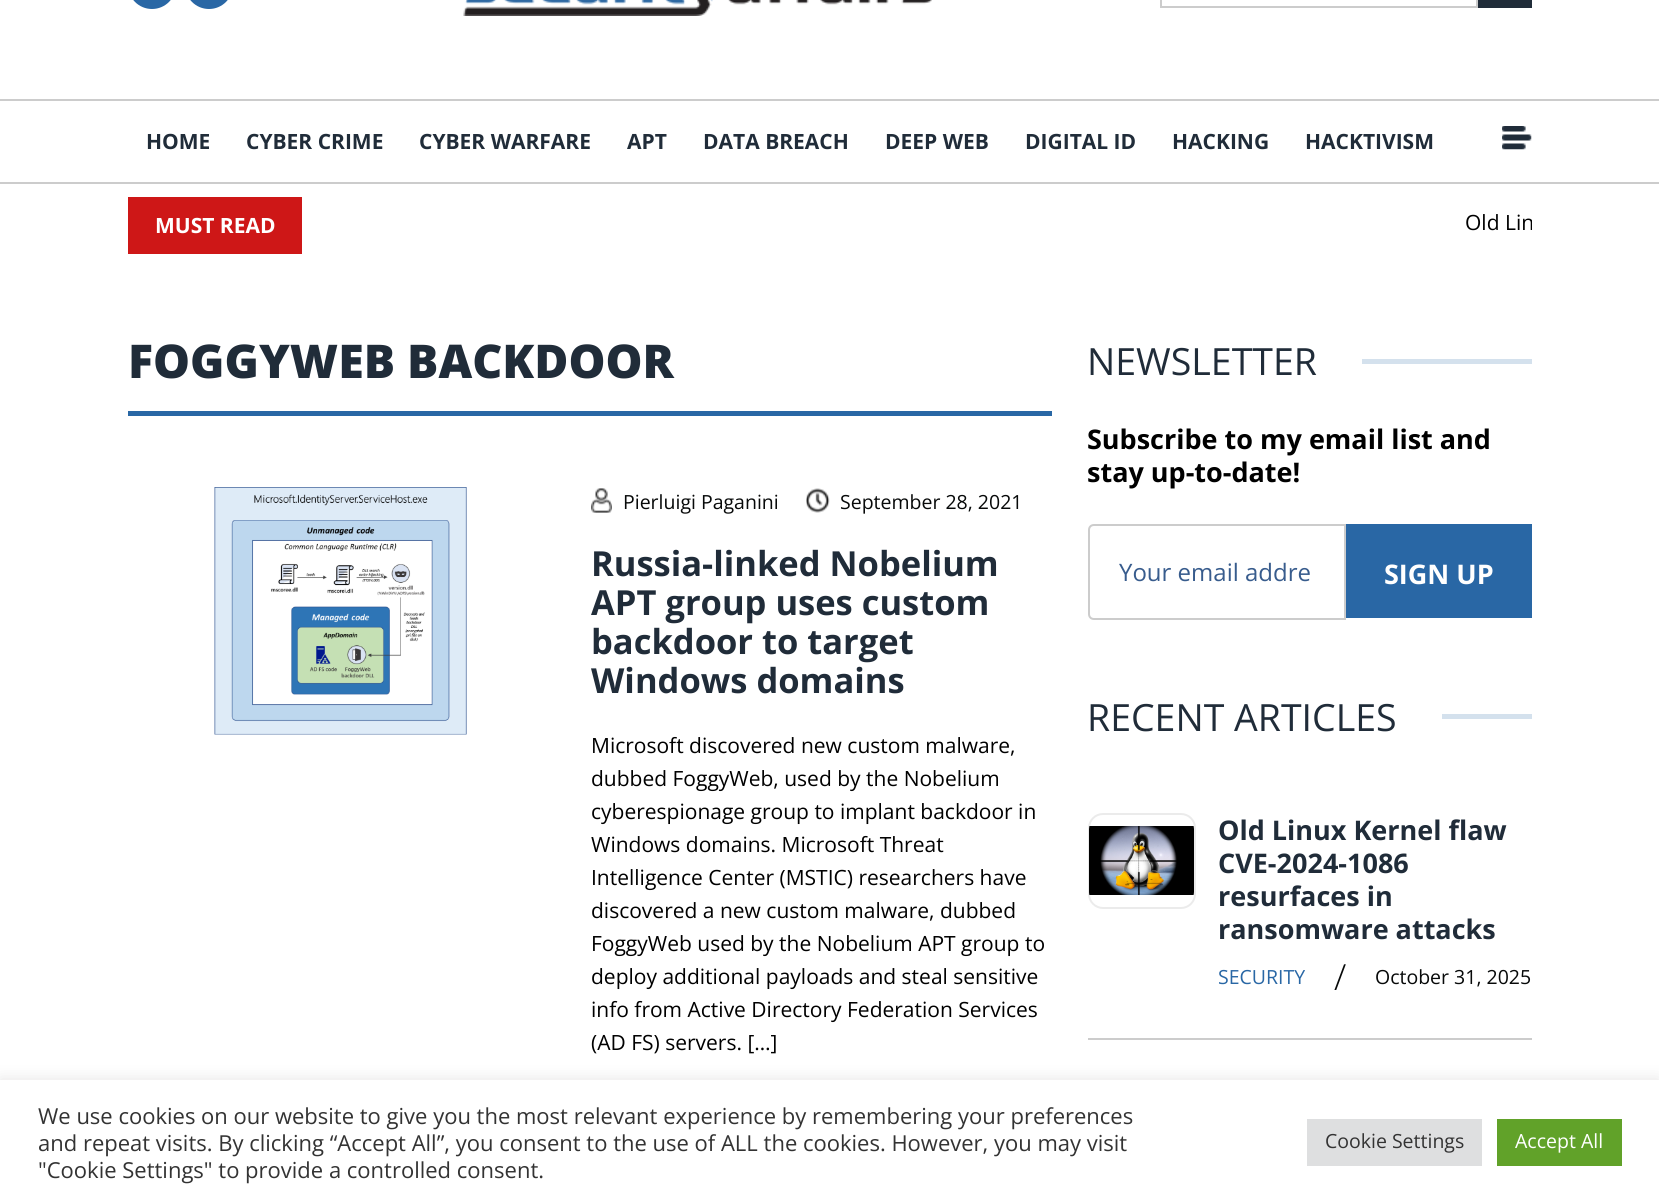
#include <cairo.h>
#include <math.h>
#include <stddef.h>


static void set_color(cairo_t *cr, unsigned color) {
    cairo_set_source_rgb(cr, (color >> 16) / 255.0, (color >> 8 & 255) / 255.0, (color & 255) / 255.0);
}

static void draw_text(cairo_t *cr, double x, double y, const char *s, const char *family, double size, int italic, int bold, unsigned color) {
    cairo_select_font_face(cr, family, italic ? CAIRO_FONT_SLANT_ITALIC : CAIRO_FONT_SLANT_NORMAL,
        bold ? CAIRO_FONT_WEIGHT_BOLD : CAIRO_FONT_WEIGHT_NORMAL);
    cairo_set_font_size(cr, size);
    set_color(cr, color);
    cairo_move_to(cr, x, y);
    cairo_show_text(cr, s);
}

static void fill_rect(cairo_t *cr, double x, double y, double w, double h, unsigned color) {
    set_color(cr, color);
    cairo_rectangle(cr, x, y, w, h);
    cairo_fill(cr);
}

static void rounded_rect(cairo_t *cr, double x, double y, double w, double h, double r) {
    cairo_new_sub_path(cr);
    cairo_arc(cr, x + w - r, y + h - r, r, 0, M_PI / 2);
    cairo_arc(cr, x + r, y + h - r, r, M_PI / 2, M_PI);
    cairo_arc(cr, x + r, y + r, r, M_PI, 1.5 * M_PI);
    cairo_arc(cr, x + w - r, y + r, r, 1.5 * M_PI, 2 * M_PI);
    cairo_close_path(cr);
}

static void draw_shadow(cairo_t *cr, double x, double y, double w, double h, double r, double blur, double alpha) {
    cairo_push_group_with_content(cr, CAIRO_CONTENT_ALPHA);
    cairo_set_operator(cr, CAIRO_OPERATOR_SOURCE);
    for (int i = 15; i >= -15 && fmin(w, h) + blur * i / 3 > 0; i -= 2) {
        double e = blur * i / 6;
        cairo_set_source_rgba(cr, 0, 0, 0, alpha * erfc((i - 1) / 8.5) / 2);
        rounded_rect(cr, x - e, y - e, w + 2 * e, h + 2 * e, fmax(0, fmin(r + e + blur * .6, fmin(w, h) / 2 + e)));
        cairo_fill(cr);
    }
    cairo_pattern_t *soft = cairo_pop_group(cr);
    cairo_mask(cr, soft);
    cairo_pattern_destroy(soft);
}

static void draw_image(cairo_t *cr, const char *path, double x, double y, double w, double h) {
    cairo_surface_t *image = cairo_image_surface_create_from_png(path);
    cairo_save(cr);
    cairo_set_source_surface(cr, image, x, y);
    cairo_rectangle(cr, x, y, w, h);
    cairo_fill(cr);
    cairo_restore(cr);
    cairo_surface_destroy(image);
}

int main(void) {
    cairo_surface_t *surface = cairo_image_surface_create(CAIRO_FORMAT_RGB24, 1659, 1202);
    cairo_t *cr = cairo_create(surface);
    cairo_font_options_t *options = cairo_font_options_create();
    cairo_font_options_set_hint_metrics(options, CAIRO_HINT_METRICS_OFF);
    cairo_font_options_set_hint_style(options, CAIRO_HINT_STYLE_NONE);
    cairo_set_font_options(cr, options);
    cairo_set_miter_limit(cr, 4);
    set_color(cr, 0xFFFFFF);
    cairo_paint(cr);
    set_color(cr, 0x2967A5);
    rounded_rect(cr, 128, -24, 48, 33, 24);
    cairo_fill(cr);
    rounded_rect(cr, 185, -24, 48, 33, 24);
    cairo_fill(cr);
    draw_image(cr, "assets/img1.png", 463, 0, 469, 16);
    cairo_rectangle(cr, 1161, -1, 316, 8);
    set_color(cr, 0xCCCCCC);
    cairo_stroke(cr);
    fill_rect(cr, 1478, 0, 54, 8, 0x202C39);
    fill_rect(cr, 0, 99, 1659, 2, 0xCCCCCC);
    fill_rect(cr, 0, 182, 1659, 2, 0xCCCCCC);
    draw_text(cr, 146, 149, "HOME", "Open Sans", 21, 0, 1, 0x202C39);
    draw_text(cr, 246, 149, "CYBER CRIME", "Open Sans", 21, 0, 1, 0x202C39);
    draw_text(cr, 419, 149, "CYBER WARFARE", "Open Sans", 21, 0, 1, 0x202C39);
    draw_text(cr, 627, 149, "APT", "Open Sans", 21, 0, 1, 0x202C39);
    draw_text(cr, 703, 149, "DATA BREACH", "Open Sans", 21, 0, 1, 0x202C39);
    draw_text(cr, 885, 149, "DEEP WEB", "Open Sans", 21, 0, 1, 0x202C39);
    draw_text(cr, 1025, 149, "DIGITAL ID", "Open Sans", 21, 0, 1, 0x202C39);
    draw_text(cr, 1172, 149, "HACKING", "Open Sans", 21, 0, 1, 0x202C39);
    draw_text(cr, 1305, 149, "HACKTIVISM", "Open Sans", 21, 0, 1, 0x202C39);
    draw_image(cr, "assets/img2.png", 1502, 126, 30, 24);
    fill_rect(cr, 128, 197, 174, 57, 0xCE1717);
    draw_text(cr, 155, 233, "MUST READ", "Open Sans", 21, 0, 1, 0xFFFFFF);
    cairo_save(cr);
    cairo_rectangle(cr, 332, 204, 1200, 35);
    cairo_clip(cr);
    draw_text(cr, 1465, 230, "Old Lin", "Open Sans", 21, 0, 0, 0x000000);
    cairo_restore(cr);
    draw_text(cr, 128, 378, "FOGGYWEB BACKDOOR", "Open Sans ExtraBold", 46.5, 0, 0, 0x202C39);
    fill_rect(cr, 128, 411, 924, 5, 0x2967A5);
    draw_image(cr, "assets/img3.png", 214, 487, 253, 248);
    draw_image(cr, "assets/img4.png", 591, 488, 21, 25);
    draw_text(cr, 623, 509, "Pierluigi Paganini", "Open Sans", 19.5, 0, 0, 0x070909);
    draw_image(cr, "assets/img5.png", 806, 488, 24, 25);
    draw_text(cr, 840, 509, "September 28, 2021", "Open Sans", 19.5, 0, 0, 0x070909);
    draw_text(cr, 591, 576, "Russia-linked Nobelium", "Open Sans", 34.5, 0, 1, 0x202C39);
    draw_text(cr, 591, 615, "APT group uses custom", "Open Sans", 34.5, 0, 1, 0x202C39);
    draw_text(cr, 591, 654, "backdoor to target", "Open Sans", 34.5, 0, 1, 0x202C39);
    draw_text(cr, 591, 693, "Windows domains", "Open Sans", 34.5, 0, 1, 0x202C39);
    draw_text(cr, 591, 753, "Microsoft discovered new custom malware,", "Open Sans", 21, 0, 0, 0x000000);
    draw_text(cr, 591, 786, "dubbed FoggyWeb, used by the Nobelium", "Open Sans", 21, 0, 0, 0x000000);
    draw_text(cr, 591, 819, "cyberespionage group to implant backdoor in", "Open Sans", 21, 0, 0, 0x000000);
    draw_text(cr, 591, 852, "Windows domains. Microsoft Threat", "Open Sans", 21, 0, 0, 0x000000);
    draw_text(cr, 591, 885, "Intelligence Center (MSTIC) researchers have", "Open Sans", 21, 0, 0, 0x000000);
    draw_text(cr, 591, 918, "discovered a new custom malware, dubbed", "Open Sans", 21, 0, 0, 0x000000);
    draw_text(cr, 591, 951, "FoggyWeb used by the Nobelium APT group to", "Open Sans", 21, 0, 0, 0x000000);
    draw_text(cr, 591, 984, "deploy additional payloads and steal sensitive", "Open Sans", 21, 0, 0, 0x000000);
    draw_text(cr, 591, 1017, "info from Active Directory Federation Services", "Open Sans", 21, 0, 0, 0x000000);
    draw_text(cr, 591, 1050, "(AD FS) servers. […]", "Open Sans", 21, 0, 0, 0x000000);
    draw_text(cr, 1087, 375, "NEWSLETTER", "Open Sans", 37.5, 0, 0, 0x202C39);
    fill_rect(cr, 1362, 359, 170, 5, 0xD4E1ED);
    draw_text(cr, 1087, 449, "Subscribe to my email list and", "Open Sans", 27, 0, 1, 0x000000);
    draw_text(cr, 1087, 482, "stay up-to-date!", "Open Sans", 27, 0, 1, 0x000000);
    cairo_new_path(cr);
    cairo_move_to(cr, 1094, 525);
    cairo_line_to(cr, 1345, 525);
    cairo_line_to(cr, 1345, 619);
    cairo_line_to(cr, 1094, 619);
    cairo_curve_to(cr, 1091, 619, 1089, 617, 1089, 614);
    cairo_line_to(cr, 1089, 530);
    cairo_curve_to(cr, 1089, 527, 1091, 525, 1094, 525);
    cairo_close_path(cr);
    set_color(cr, 0xCCCCCC);
    cairo_stroke(cr);
    draw_text(cr, 1119, 581, "Your email addre", "Open Sans", 24, 0, 0, 0x385C8D);
    fill_rect(cr, 1346, 524, 186, 94, 0x2967A5);
    draw_text(cr, 1384, 584, "SIGN UP", "Open Sans", 27, 0, 1, 0xFFFFFF);
    draw_text(cr, 1087, 731, "RECENT ARTICLES", "Open Sans", 37.5, 0, 0, 0x202C39);
    fill_rect(cr, 1442, 714, 90, 5, 0xD4E1ED);
    fill_rect(cr, 1088, 1038, 444, 2, 0xCCCCCC);
    rounded_rect(cr, 1089, 814, 106, 94, 14);
    set_color(cr, 0xEBEBEB);
    cairo_stroke(cr);
    draw_image(cr, "assets/img6.png", 1089, 826, 105, 69);
    draw_text(cr, 1218, 840, "Old Linux Kernel flaw", "Open Sans", 27, 0, 1, 0x202C39);
    draw_text(cr, 1218, 873, "CVE-2024-1086", "Open Sans", 27, 0, 1, 0x202C39);
    draw_text(cr, 1218, 906, "resurfaces in", "Open Sans", 27, 0, 1, 0x202C39);
    draw_text(cr, 1218, 939, "ransomware attacks", "Open Sans", 27, 0, 1, 0x202C39);
    draw_text(cr, 1218, 984, "SECURITY", "Open Sans", 19.5, 0, 0, 0x2967A5);
    draw_text(cr, 1334, 990, "/", "Open Sans Light", 36, 0, 0, 0x070909);
    draw_text(cr, 1375, 984, "October 31, 2025", "Open Sans", 19.5, 0, 0, 0x070909);
    set_color(cr, 0xACABAB);
    draw_shadow(cr, 0, 1079, 1659, 123, 0, 7.5, 0.3);
    fill_rect(cr, 0, 1080, 1659, 122, 0xFFFFFF);
    draw_text(cr, 38, 1124, "We use cookies on our website to give you the most relevant experience by remembering your preferences", "Open Sans", 22, 0, 0, 0x333333);
    draw_text(cr, 38, 1151, "and repeat visits. By clicking “Accept All”, you consent to the use of ALL the cookies. However, you may visit", "Open Sans", 22, 0, 0, 0x333333);
    draw_text(cr, 38, 1178, "\"Cookie Settings\" to provide a controlled consent.", "Open Sans", 22, 0, 0, 0x333333);
    fill_rect(cr, 1307, 1119, 175, 47, 0xDEDFE0);
    draw_text(cr, 1325, 1148, "Cookie Settings", "Open Sans", 19.5, 0, 0, 0x333333);
    fill_rect(cr, 1497, 1119, 125, 47, 0x61A229);
    draw_text(cr, 1515, 1148, "Accept All", "Open Sans", 19.5, 0, 0, 0xFFFFFF);
    cairo_surface_write_to_png(surface, "output.png");
    cairo_font_options_destroy(options);
    cairo_destroy(cr);
    cairo_surface_destroy(surface);
    return 0;
}
